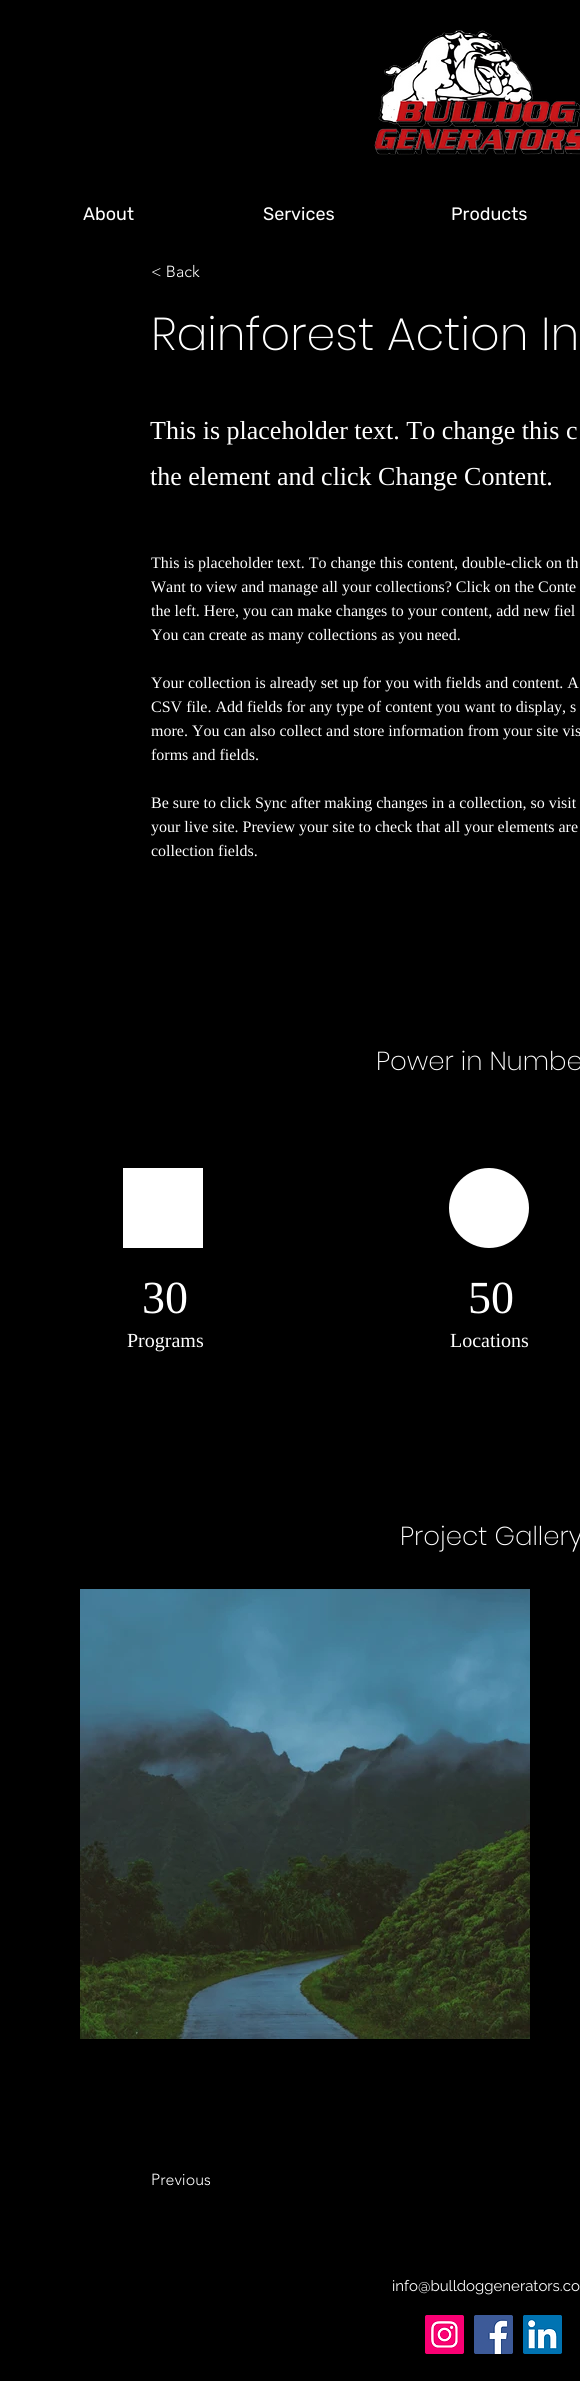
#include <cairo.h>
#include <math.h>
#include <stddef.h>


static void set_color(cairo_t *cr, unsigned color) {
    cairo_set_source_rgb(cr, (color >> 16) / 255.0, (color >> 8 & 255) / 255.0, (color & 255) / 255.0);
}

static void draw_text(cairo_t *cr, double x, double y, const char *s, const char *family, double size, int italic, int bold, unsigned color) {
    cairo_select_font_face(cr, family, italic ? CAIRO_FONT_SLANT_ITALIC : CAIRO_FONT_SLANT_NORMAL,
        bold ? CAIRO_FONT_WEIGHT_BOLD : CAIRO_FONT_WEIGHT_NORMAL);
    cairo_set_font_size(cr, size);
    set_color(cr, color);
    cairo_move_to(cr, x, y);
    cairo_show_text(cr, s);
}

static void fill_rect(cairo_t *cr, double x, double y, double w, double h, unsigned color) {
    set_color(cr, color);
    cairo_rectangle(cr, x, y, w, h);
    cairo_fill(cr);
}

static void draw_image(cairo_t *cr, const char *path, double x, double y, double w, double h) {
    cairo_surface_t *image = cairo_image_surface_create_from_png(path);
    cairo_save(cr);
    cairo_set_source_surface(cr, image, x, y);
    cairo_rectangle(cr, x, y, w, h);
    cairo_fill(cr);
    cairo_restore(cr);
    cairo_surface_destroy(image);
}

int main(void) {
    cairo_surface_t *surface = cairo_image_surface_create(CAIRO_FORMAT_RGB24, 580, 2381);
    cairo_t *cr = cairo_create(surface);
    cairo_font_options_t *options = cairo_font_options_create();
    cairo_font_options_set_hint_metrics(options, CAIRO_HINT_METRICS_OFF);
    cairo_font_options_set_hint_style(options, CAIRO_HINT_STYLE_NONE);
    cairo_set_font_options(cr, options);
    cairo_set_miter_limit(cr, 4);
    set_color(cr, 0x000000);
    cairo_paint(cr);
    draw_image(cr, "assets/img1.png", 374, 30, 206, 125);
    draw_text(cr, 83, 220, "About", "Rubik", 18, 0, 0, 0xFFFFFF);
    draw_text(cr, 263, 220, "Services", "Rubik", 18, 0, 0, 0xFFFFFF);
    draw_text(cr, 451, 220, "Products", "Rubik", 18, 0, 0, 0xFFFFFF);
    draw_text(cr, 151, 277, "< Back", "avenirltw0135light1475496 Light", 16, 0, 0, 0xFFFFFF);
    draw_text(cr, 151, 350, "Rainforest Action In", "Poppins ExtraLight", 46, 0, 0, 0xFFFFFF);
    draw_text(cr, 150, 439, "This is placeholder text. To change this c", "Liberation Serif", 26, 0, 0, 0xFFFFFF);
    draw_text(cr, 150, 485, "the element and click Change Content.", "Liberation Serif", 26, 0, 0, 0xFFFFFF);
    draw_text(cr, 151, 568, "This is placeholder text. To change this content, double-click on th", "Liberation Serif", 16, 0, 0, 0xFFFFFF);
    draw_text(cr, 151, 592, "Want to view and manage all your collections? Click on the Conte", "Liberation Serif", 16, 0, 0, 0xFFFFFF);
    draw_text(cr, 151, 616, "the left. Here, you can make changes to your content, add new fiel", "Liberation Serif", 16, 0, 0, 0xFFFFFF);
    draw_text(cr, 151, 640, "You can create as many collections as you need.", "Liberation Serif", 16, 0, 0, 0xFFFFFF);
    draw_text(cr, 151, 688, "Your collection is already set up for you with fields and content. A", "Liberation Serif", 16, 0, 0, 0xFFFFFF);
    draw_text(cr, 151, 712, "CSV file. Add fields for any type of content you want to display, s", "Liberation Serif", 16, 0, 0, 0xFFFFFF);
    draw_text(cr, 151, 736, "more. You can also collect and store information from your site vis", "Liberation Serif", 16, 0, 0, 0xFFFFFF);
    draw_text(cr, 151, 760, "forms and fields.", "Liberation Serif", 16, 0, 0, 0xFFFFFF);
    draw_text(cr, 151, 808, "Be sure to click Sync after making changes in a collection, so visit", "Liberation Serif", 16, 0, 0, 0xFFFFFF);
    draw_text(cr, 151, 832, "your live site. Preview your site to check that all your elements are", "Liberation Serif", 16, 0, 0, 0xFFFFFF);
    draw_text(cr, 151, 856, "collection fields.", "Liberation Serif", 16, 0, 0, 0xFFFFFF);
    draw_text(cr, 376, 1070, "Power in Numbe", "Poppins ExtraLight", 26, 0, 0, 0xFFFFFF);
    fill_rect(cr, 123, 1168, 80, 80, 0xFFFFFF);
    draw_text(cr, 142, 1313, "30", "Liberation Serif", 46, 0, 0, 0xFFFFFF);
    draw_text(cr, 127, 1347, "Programs", "Liberation Serif", 20, 0, 0, 0xFFFFFF);
    cairo_set_fill_rule(cr, CAIRO_FILL_RULE_EVEN_ODD);
    cairo_new_path(cr);
    cairo_move_to(cr, 529, 1208);
    cairo_curve_to(cr, 529, 1230, 511, 1248, 489, 1248);
    cairo_curve_to(cr, 467, 1248, 449, 1230, 449, 1208);
    cairo_curve_to(cr, 449, 1186, 467, 1168, 489, 1168);
    cairo_curve_to(cr, 511, 1168, 529, 1186, 529, 1208);
    cairo_fill(cr);
    draw_text(cr, 468, 1313, "50", "Liberation Serif", 46, 0, 0, 0xFFFFFF);
    draw_text(cr, 450, 1347, "Locations", "Liberation Serif", 20, 0, 0, 0xFFFFFF);
    draw_text(cr, 400, 1545, "Project Gallery", "Poppins ExtraLight", 26, 0, 0, 0xFFFFFF);
    draw_image(cr, "assets/img2.png", 80, 1589, 450, 450);
    draw_text(cr, 151, 2185, "Previous", "avenirltw0135light1475496 Light", 16, 0, 0, 0xFFFFFF);
    draw_text(cr, 392, 2291, "info@bulldoggenerators.co", "Raleway", 15, 0, 0, 0xFFFFFF);
    draw_image(cr, "assets/img3.png", 425, 2315, 39, 39);
    draw_image(cr, "assets/img4.png", 474, 2315, 39, 39);
    draw_image(cr, "assets/img5.png", 523, 2315, 39, 39);
    cairo_surface_write_to_png(surface, "output.png");
    cairo_font_options_destroy(options);
    cairo_destroy(cr);
    cairo_surface_destroy(surface);
    return 0;
}
